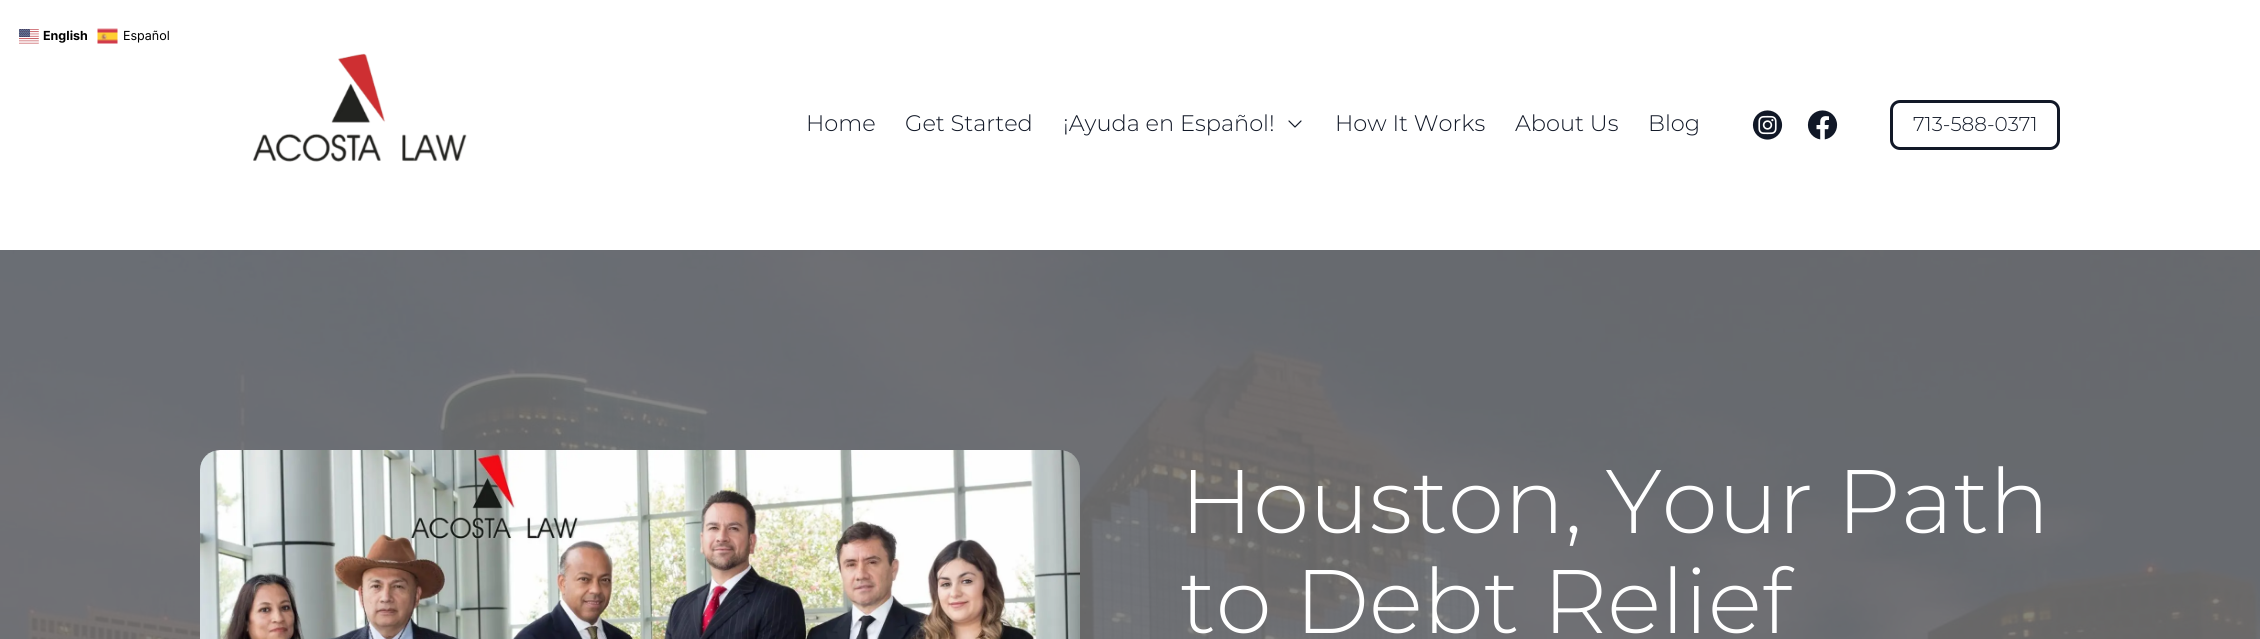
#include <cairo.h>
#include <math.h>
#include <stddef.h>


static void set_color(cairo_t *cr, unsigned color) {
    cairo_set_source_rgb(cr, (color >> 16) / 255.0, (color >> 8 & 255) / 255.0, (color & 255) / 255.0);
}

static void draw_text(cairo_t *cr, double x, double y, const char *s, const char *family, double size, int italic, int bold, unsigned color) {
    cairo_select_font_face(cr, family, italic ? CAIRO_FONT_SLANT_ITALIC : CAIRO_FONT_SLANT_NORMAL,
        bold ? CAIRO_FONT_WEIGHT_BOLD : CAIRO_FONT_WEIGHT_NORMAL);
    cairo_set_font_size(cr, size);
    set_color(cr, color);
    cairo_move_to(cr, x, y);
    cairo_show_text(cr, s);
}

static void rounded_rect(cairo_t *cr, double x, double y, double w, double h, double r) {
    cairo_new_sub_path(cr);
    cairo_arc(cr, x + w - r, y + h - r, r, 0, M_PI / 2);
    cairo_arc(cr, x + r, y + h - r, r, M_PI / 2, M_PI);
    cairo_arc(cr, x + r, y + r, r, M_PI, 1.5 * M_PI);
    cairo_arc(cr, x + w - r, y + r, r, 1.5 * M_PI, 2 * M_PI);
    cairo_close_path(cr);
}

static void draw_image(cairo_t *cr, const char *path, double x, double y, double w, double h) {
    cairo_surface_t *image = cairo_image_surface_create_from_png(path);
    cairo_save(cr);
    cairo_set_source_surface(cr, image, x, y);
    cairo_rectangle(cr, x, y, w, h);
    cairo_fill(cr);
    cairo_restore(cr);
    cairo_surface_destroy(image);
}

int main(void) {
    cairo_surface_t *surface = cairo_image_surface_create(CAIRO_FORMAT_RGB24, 2260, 639);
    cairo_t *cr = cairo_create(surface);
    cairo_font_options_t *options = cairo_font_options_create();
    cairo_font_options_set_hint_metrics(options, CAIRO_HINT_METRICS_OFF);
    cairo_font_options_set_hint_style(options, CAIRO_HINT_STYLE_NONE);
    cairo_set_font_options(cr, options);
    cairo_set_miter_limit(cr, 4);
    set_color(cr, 0xFFFFFF);
    cairo_paint(cr);
    draw_image(cr, "assets/img1.png", 19, 29, 20, 15);
    draw_text(cr, 43, 40, "English", "Inter", 12.5, 0, 1, 0x000000);
    draw_image(cr, "assets/img2.png", 97, 28, 21, 16);
    draw_text(cr, 123, 40, "Español", "Inter", 12.5, 0, 0, 0x000000);
    draw_image(cr, "assets/img3.png", 253, 53, 214, 109);
    draw_text(cr, 806, 131, "Home", "Montserrat Thin", 22.5, 0, 0, 0x111827);
    draw_text(cr, 905, 131, "Get Started", "Montserrat Thin", 22.5, 0, 0, 0x111827);
    draw_text(cr, 1063, 131, "¡Ayuda en Español!", "Montserrat Thin", 22.5, 0, 0, 0x111827);
    cairo_new_path(cr);
    cairo_move_to(cr, 1301, 121);
    cairo_line_to(cr, 1295, 127);
    cairo_line_to(cr, 1289, 121);
    cairo_set_line_width(cr, 1.2);
    cairo_set_line_cap(cr, CAIRO_LINE_CAP_ROUND);
    cairo_set_line_join(cr, CAIRO_LINE_JOIN_ROUND);
    cairo_stroke(cr);
    draw_text(cr, 1335, 131, "How It Works", "Montserrat Thin", 22.5, 0, 0, 0x111827);
    draw_text(cr, 1515, 131, "About Us", "Montserrat Thin", 22.5, 0, 0, 0x111827);
    draw_text(cr, 1648, 131, "Blog", "Montserrat Thin", 22.5, 0, 0, 0x111827);
    draw_image(cr, "assets/img4.png", 1752, 110, 31, 30);
    draw_image(cr, "assets/img5.png", 1807, 110, 31, 30);
    rounded_rect(cr, 1891.5, 101.5, 167, 47, 8.5);
    cairo_set_line_width(cr, 3);
    cairo_set_line_cap(cr, CAIRO_LINE_CAP_BUTT);
    cairo_set_line_join(cr, CAIRO_LINE_JOIN_MITER);
    cairo_stroke(cr);
    draw_text(cr, 1913, 131, "713-588-0371", "Montserrat Thin", 20, 0, 0, 0x111827);
    draw_image(cr, "assets/img6.png", 0, 250, 2260, 389);
    draw_image(cr, "assets/img7.png", 200, 450, 880, 189);
    draw_text(cr, 1180, 533, "Houston, Your Path", "Montserrat Thin", 90, 0, 0, 0xFFFFFF);
    draw_text(cr, 1180, 633, "to Debt Relief", "Montserrat Thin", 90, 0, 0, 0xFFFFFF);
    cairo_surface_write_to_png(surface, "output.png");
    cairo_font_options_destroy(options);
    cairo_destroy(cr);
    cairo_surface_destroy(surface);
    return 0;
}
